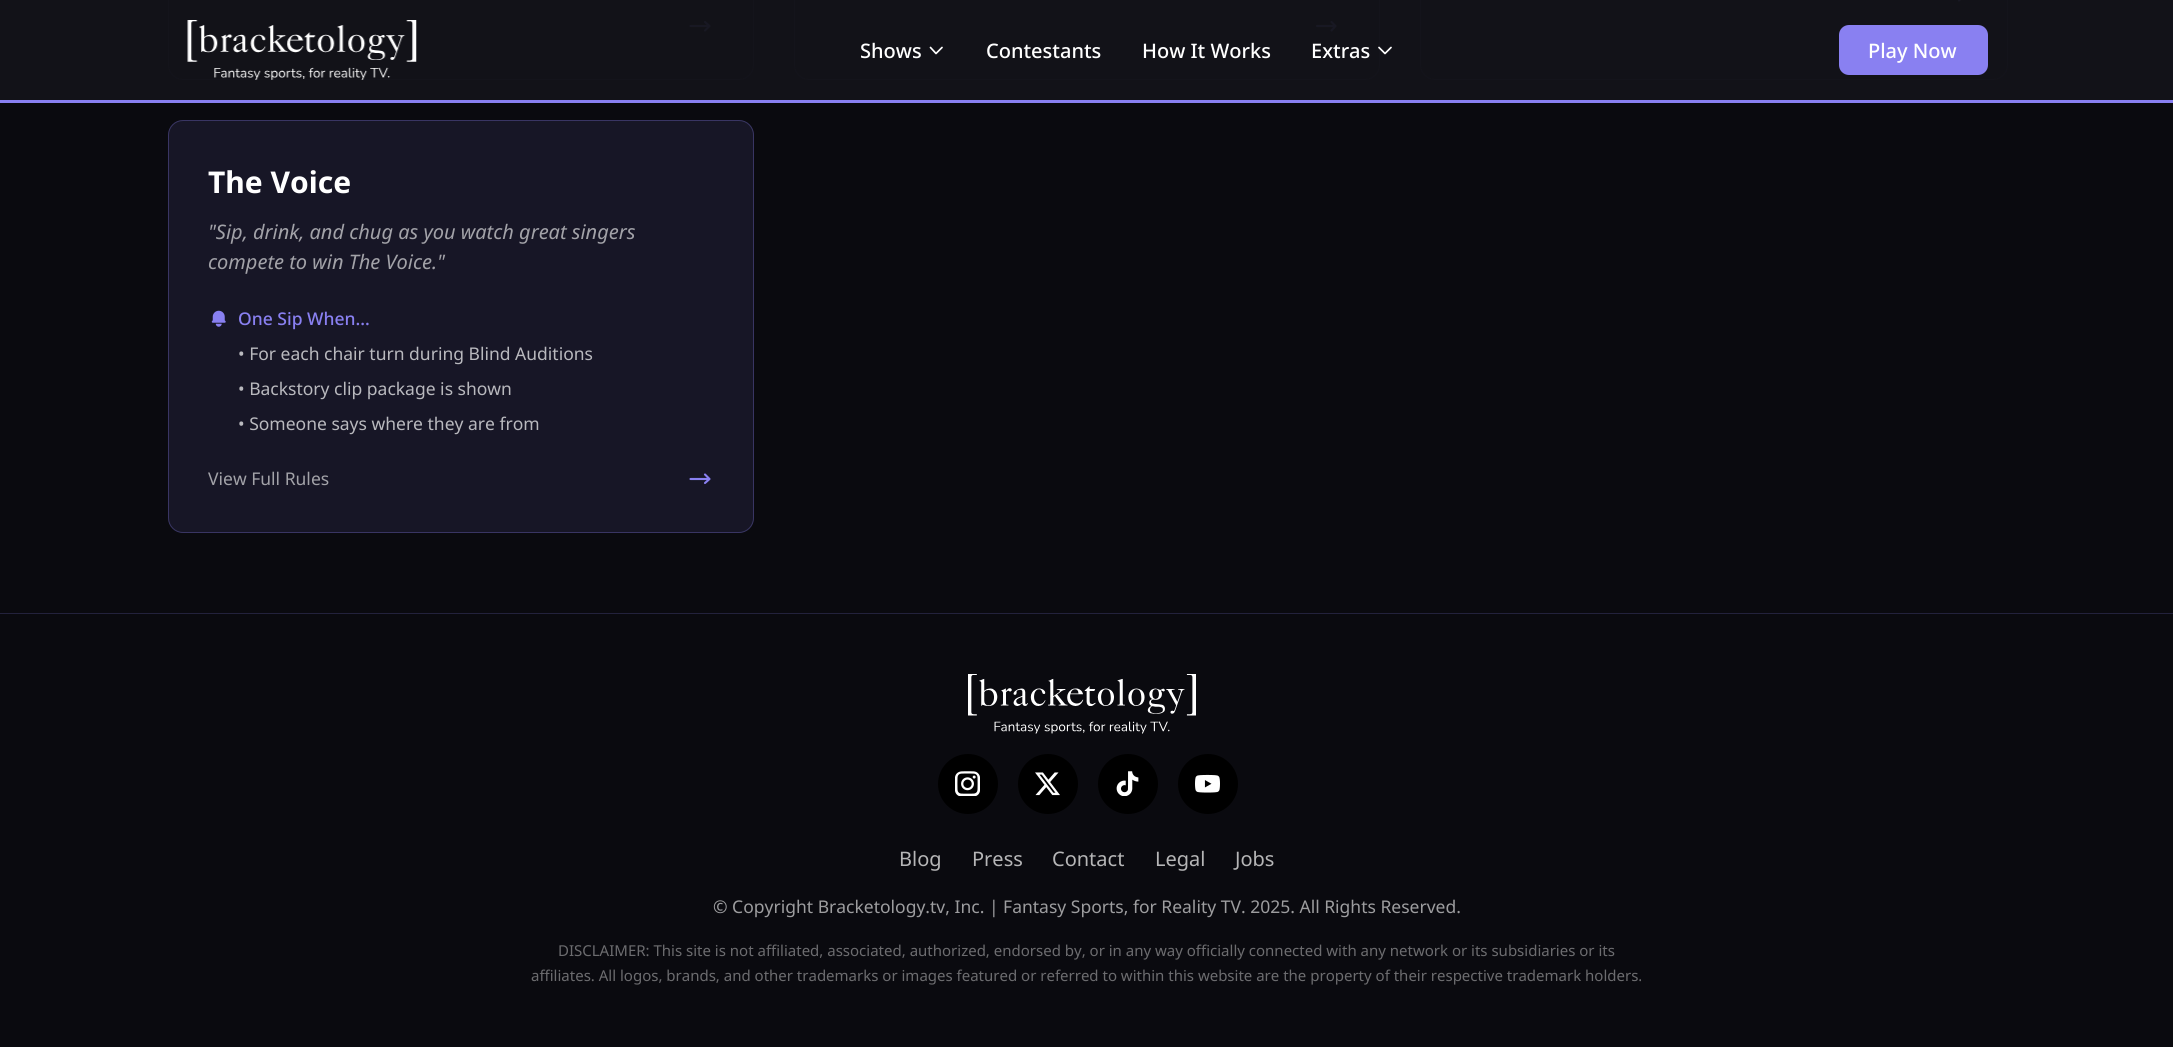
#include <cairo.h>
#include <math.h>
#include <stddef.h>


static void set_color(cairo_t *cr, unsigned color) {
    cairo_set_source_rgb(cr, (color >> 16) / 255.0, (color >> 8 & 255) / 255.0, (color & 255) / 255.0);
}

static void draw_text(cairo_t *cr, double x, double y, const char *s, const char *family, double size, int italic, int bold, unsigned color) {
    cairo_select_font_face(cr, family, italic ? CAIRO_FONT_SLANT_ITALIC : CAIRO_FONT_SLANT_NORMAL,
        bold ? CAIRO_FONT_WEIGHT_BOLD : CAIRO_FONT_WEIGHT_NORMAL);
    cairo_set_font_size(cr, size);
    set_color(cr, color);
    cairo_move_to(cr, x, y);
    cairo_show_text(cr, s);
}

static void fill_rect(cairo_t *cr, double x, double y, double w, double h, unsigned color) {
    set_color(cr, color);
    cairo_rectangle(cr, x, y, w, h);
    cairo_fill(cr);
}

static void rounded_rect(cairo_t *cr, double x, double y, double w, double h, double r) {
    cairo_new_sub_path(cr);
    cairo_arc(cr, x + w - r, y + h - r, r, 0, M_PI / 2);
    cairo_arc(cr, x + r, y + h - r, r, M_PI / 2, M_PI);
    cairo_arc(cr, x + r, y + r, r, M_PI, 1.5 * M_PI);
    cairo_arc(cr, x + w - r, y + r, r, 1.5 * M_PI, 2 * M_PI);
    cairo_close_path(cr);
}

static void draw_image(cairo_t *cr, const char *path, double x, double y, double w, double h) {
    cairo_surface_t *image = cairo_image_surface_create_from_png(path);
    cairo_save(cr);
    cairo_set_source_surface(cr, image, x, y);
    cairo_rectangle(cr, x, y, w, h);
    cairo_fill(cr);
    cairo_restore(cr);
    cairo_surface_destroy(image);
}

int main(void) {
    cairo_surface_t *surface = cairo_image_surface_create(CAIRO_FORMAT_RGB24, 2173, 1047);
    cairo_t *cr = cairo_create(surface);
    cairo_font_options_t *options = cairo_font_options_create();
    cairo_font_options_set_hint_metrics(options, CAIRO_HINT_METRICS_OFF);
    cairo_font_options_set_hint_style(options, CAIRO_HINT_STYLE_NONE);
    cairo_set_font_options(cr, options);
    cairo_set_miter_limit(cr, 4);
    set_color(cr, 0x0A0A0F);
    cairo_paint(cr);
    fill_rect(cr, 0, 100, 2173, 3, 0x8980F1);
    fill_rect(cr, 0, 0, 2173, 100, 0x121218);
    rounded_rect(cr, 168.5, -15.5, 585, 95, 14.5);
    cairo_set_source_rgba(cr, 0.094, 0.094, 0.137, 0.3);
    cairo_set_line_width(cr, 1);
    cairo_stroke(cr);
    draw_image(cr, "assets/img1.png", 187, 20, 230, 60);
    rounded_rect(cr, 794.5, -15.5, 585, 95, 14.5);
    cairo_stroke(cr);
    draw_text(cr, 860, 58, "Shows", "Noto Sans Medium", 20, 0, 0, 0xFFFFFF);
    cairo_new_path(cr);
    cairo_move_to(cr, 942, 47.5);
    cairo_line_to(cr, 936, 53.5);
    cairo_line_to(cr, 930.5, 47.5);
    cairo_set_line_width(cr, 1.7);
    cairo_set_line_cap(cr, CAIRO_LINE_CAP_ROUND);
    cairo_set_line_join(cr, CAIRO_LINE_JOIN_ROUND);
    cairo_stroke(cr);
    draw_text(cr, 986, 58, "Contestants", "Noto Sans Medium", 20, 0, 0, 0xFFFFFF);
    draw_text(cr, 1142, 58, "How It Works", "Noto Sans Medium", 20, 0, 0, 0xFFFFFF);
    draw_text(cr, 1311, 58, "Extras", "Noto Sans Medium", 20, 0, 0, 0xFFFFFF);
    cairo_new_path(cr);
    cairo_move_to(cr, 1391, 47.5);
    cairo_line_to(cr, 1385, 53.5);
    cairo_line_to(cr, 1379, 47.5);
    cairo_stroke(cr);
    rounded_rect(cr, 1420.5, -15.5, 587, 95, 14.5);
    cairo_set_source_rgba(cr, 0.094, 0.094, 0.137, 0.3);
    cairo_set_line_width(cr, 1);
    cairo_set_line_cap(cr, CAIRO_LINE_CAP_BUTT);
    cairo_set_line_join(cr, CAIRO_LINE_JOIN_MITER);
    cairo_stroke(cr);
    set_color(cr, 0x8980F1);
    rounded_rect(cr, 1839, 25, 149, 50, 10);
    cairo_fill(cr);
    draw_text(cr, 1868, 58, "Play Now", "Noto Sans Medium", 20, 0, 0, 0xFFFFFF);
    cairo_new_path(cr);
    cairo_move_to(cr, 705, 22);
    cairo_line_to(cr, 709.5, 26);
    cairo_move_to(cr, 709.5, 26);
    cairo_line_to(cr, 705, 30.5);
    cairo_move_to(cr, 709.5, 26);
    cairo_line_to(cr, 690.5, 26);
    set_color(cr, 0x181823);
    cairo_set_line_width(cr, 2.1);
    cairo_set_line_cap(cr, CAIRO_LINE_CAP_ROUND);
    cairo_set_line_join(cr, CAIRO_LINE_JOIN_ROUND);
    cairo_stroke(cr);
    cairo_new_path(cr);
    cairo_move_to(cr, 1331.5, 22);
    cairo_line_to(cr, 1335.5, 26);
    cairo_move_to(cr, 1335.5, 26);
    cairo_line_to(cr, 1331.5, 30.5);
    cairo_move_to(cr, 1335.5, 26);
    cairo_line_to(cr, 1317, 26);
    cairo_stroke(cr);
    cairo_new_path(cr);
    cairo_move_to(cr, 1959, -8);
    cairo_line_to(cr, 1963, -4);
    cairo_move_to(cr, 1963, -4);
    cairo_line_to(cr, 1959, 0.5);
    cairo_move_to(cr, 1963, -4);
    cairo_line_to(cr, 1944.5, -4);
    cairo_stroke(cr);
    set_color(cr, 0x171626);
    rounded_rect(cr, 168, 120, 586, 413, 15);
    cairo_fill(cr);
    rounded_rect(cr, 168.5, 120.5, 585, 412, 14.5);
    cairo_set_source_rgba(cr, 0.537, 0.502, 0.945, 0.3);
    cairo_set_line_width(cr, 1);
    cairo_set_line_cap(cr, CAIRO_LINE_CAP_BUTT);
    cairo_set_line_join(cr, CAIRO_LINE_JOIN_MITER);
    cairo_stroke(cr);
    draw_text(cr, 208, 193, "The Voice", "Noto Sans", 30, 0, 1, 0xFFFFFF);
    draw_text(cr, 208, 239, "\"Sip, drink, and chug as you watch great singers", "Noto Sans", 20, 1, 0, 0xA2A2A8);
    draw_text(cr, 208, 269, "compete to win The Voice.\"", "Noto Sans", 20, 1, 0, 0xA2A2A8);
    draw_image(cr, "assets/img2.png", 211, 310, 15, 17);
    draw_text(cr, 238, 325, "One Sip When...", "Noto Sans Medium", 17.5, 0, 0, 0x8980F1);
    draw_text(cr, 238, 360, "• For each chair turn during Blind Auditions", "Noto Sans", 17.5, 0, 0, 0xB9B9BE);
    draw_text(cr, 238, 395, "• Backstory clip package is shown", "Noto Sans", 17.5, 0, 0, 0xB9B9BE);
    draw_text(cr, 238, 430, "• Someone says where they are from", "Noto Sans", 17.5, 0, 0, 0xB9B9BE);
    draw_text(cr, 208, 485, "View Full Rules", "Noto Sans", 17.5, 0, 0, 0xA2A2A8);
    cairo_new_path(cr);
    cairo_move_to(cr, 705, 474.5);
    cairo_line_to(cr, 709.5, 479);
    cairo_move_to(cr, 709.5, 479);
    cairo_line_to(cr, 705, 483);
    cairo_move_to(cr, 709.5, 479);
    cairo_line_to(cr, 690.5, 479);
    set_color(cr, 0x8980F1);
    cairo_set_line_width(cr, 2.1);
    cairo_set_line_cap(cr, CAIRO_LINE_CAP_ROUND);
    cairo_set_line_join(cr, CAIRO_LINE_JOIN_ROUND);
    cairo_stroke(cr);
    fill_rect(cr, 0, 613, 2173, 1, 0x23223C);
    draw_image(cr, "assets/img3.png", 968, 674, 228, 60);
    set_color(cr, 0x000000);
    cairo_arc(cr, 968, 784, 30, 0, 2 * M_PI);
    cairo_fill(cr);
    draw_image(cr, "assets/img4.png", 955, 771, 25, 25);
    cairo_arc(cr, 1048, 784, 30, 0, 2 * M_PI);
    cairo_fill(cr);
    draw_image(cr, "assets/img5.png", 1035, 772, 25, 24);
    cairo_arc(cr, 1128, 784, 30, 0, 2 * M_PI);
    cairo_fill(cr);
    draw_image(cr, "assets/img6.png", 1116, 771, 23, 25);
    cairo_arc(cr, 1208, 784, 30, 0, 2 * M_PI);
    cairo_fill(cr);
    draw_image(cr, "assets/img7.png", 1195, 774, 25, 19);
    draw_text(cr, 899, 866, "Blog", "Noto Sans", 20, 0, 0, 0xB6B6B7);
    draw_text(cr, 972, 866, "Press", "Noto Sans", 20, 0, 0, 0xB6B6B7);
    draw_text(cr, 1052, 866, "Contact", "Noto Sans", 20, 0, 0, 0xB6B6B7);
    draw_text(cr, 1155, 866, "Legal", "Noto Sans", 20, 0, 0, 0xB6B6B7);
    draw_text(cr, 1235, 866, "Jobs", "Noto Sans", 20, 0, 0, 0xB6B6B7);
    draw_text(cr, 713, 913, "© Copyright Bracketology.tv, Inc. | Fantasy Sports, for Reality TV. 2025. All Rights Reserved.", "Noto Sans", 17.5, 0, 0, 0x9D9D9F);
    draw_text(cr, 558, 956, "DISCLAIMER: This site is not affiliated, associated, authorized, endorsed by, or in any way officially connected with any network or its subsidiaries or its", "Noto Sans", 15, 0, 0, 0x6C6C6F);
    draw_text(cr, 531, 981, "affiliates. All logos, brands, and other trademarks or images featured or referred to within this website are the property of their respective trademark holders.", "Noto Sans", 15, 0, 0, 0x6C6C6F);
    cairo_surface_write_to_png(surface, "output.png");
    cairo_font_options_destroy(options);
    cairo_destroy(cr);
    cairo_surface_destroy(surface);
    return 0;
}
